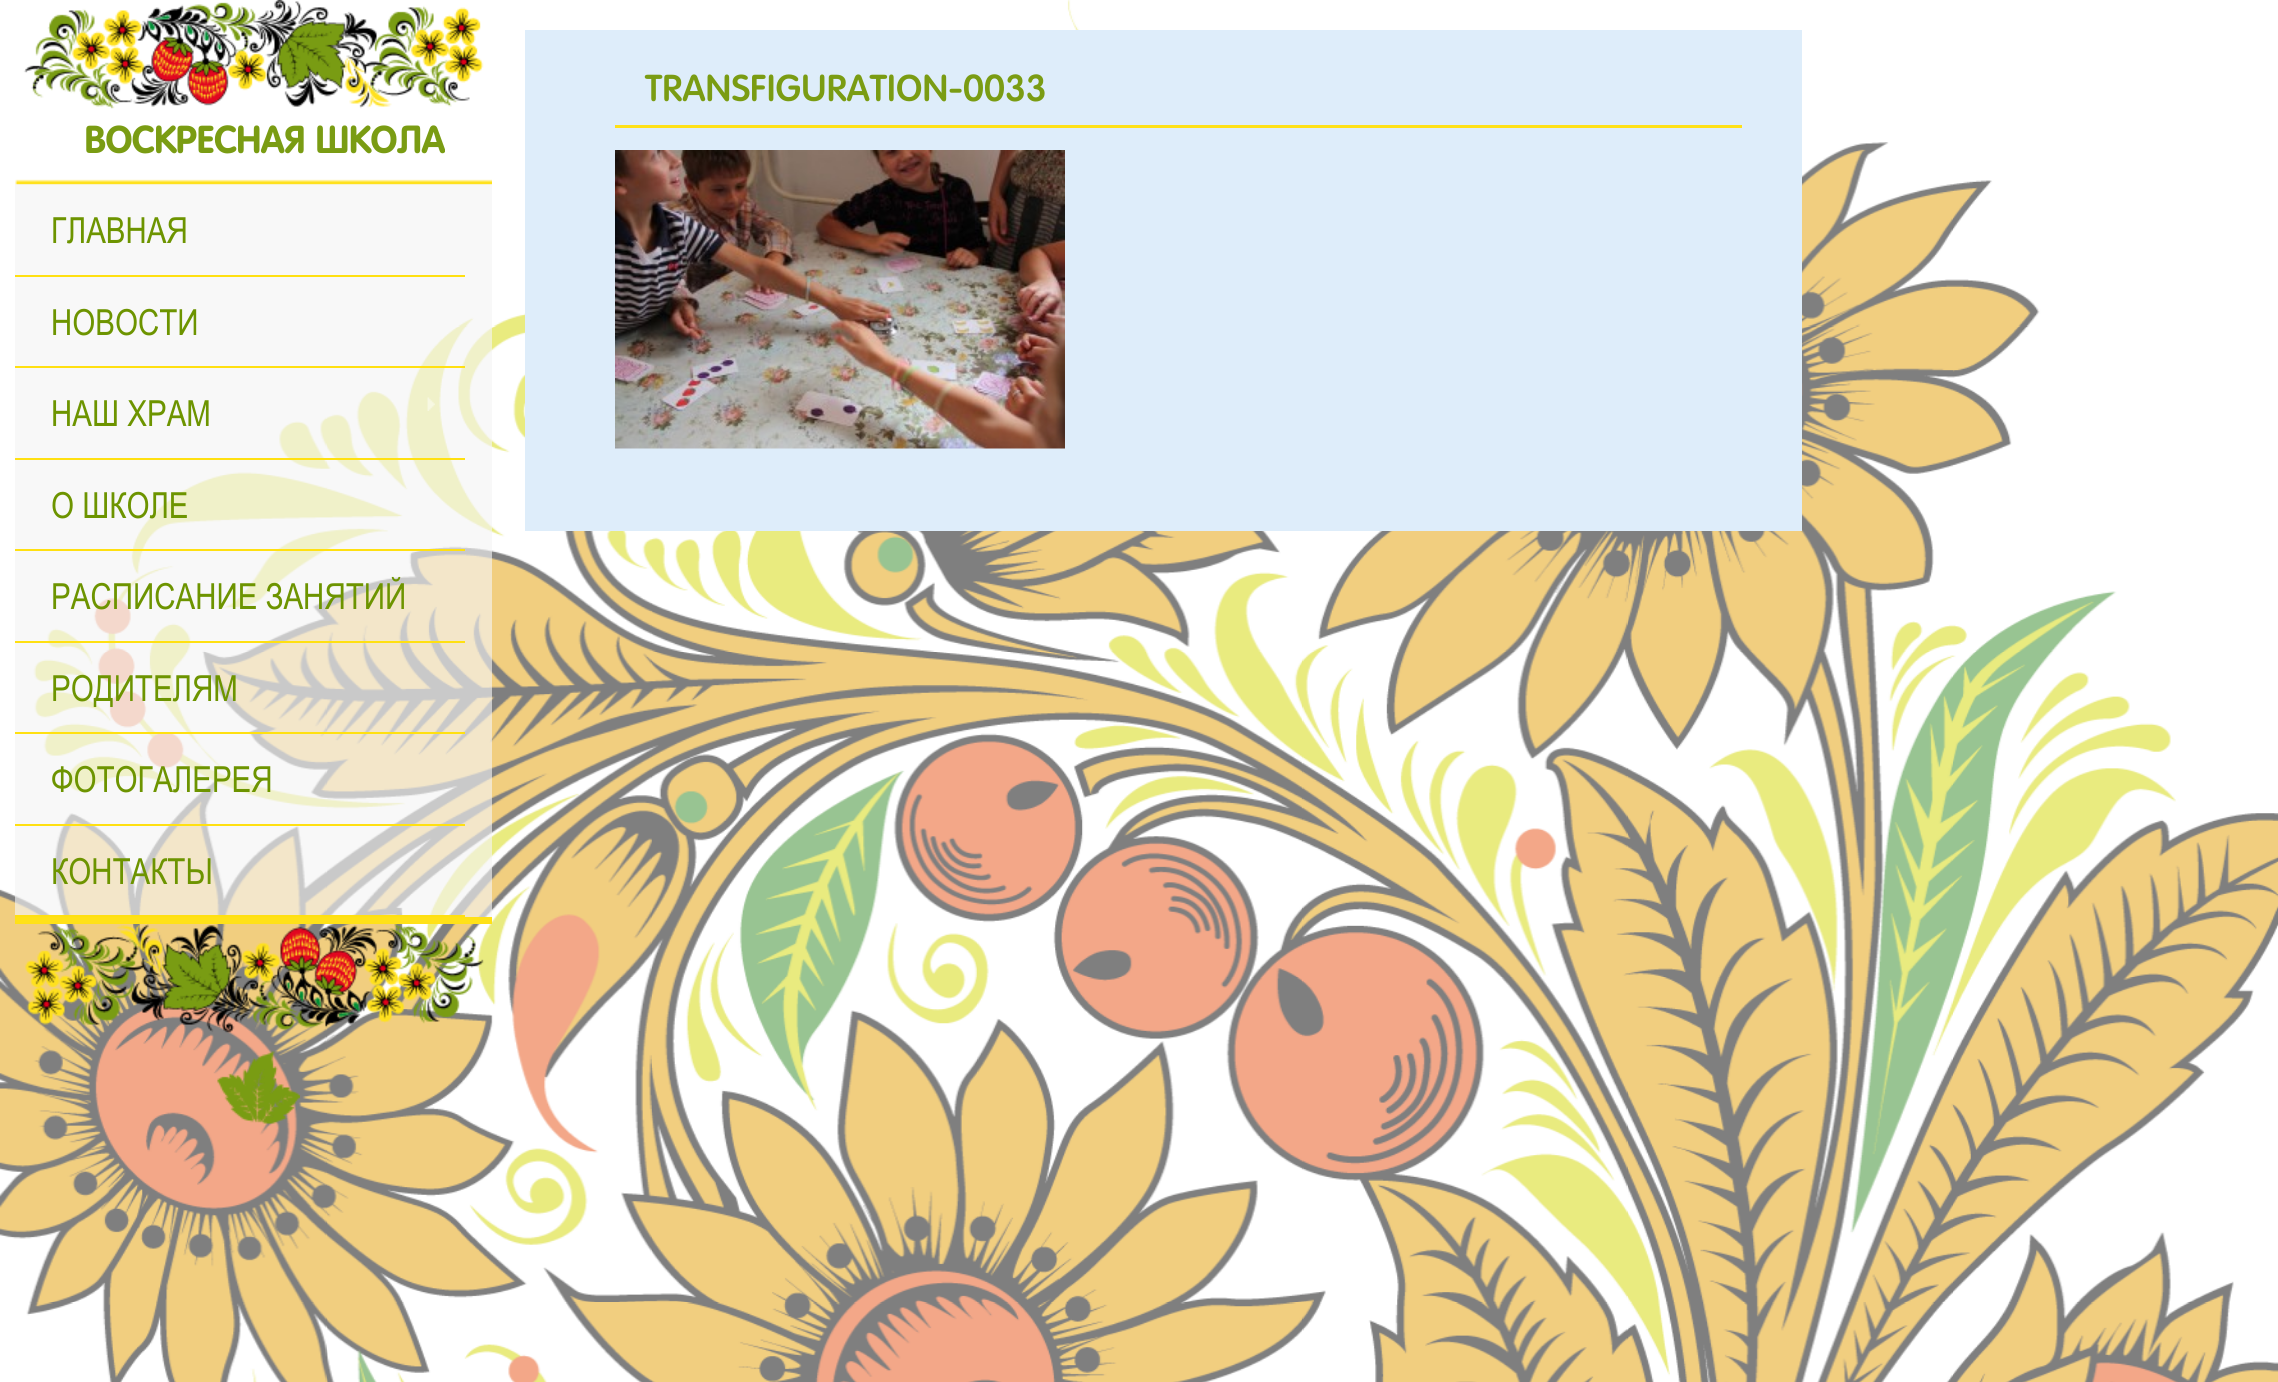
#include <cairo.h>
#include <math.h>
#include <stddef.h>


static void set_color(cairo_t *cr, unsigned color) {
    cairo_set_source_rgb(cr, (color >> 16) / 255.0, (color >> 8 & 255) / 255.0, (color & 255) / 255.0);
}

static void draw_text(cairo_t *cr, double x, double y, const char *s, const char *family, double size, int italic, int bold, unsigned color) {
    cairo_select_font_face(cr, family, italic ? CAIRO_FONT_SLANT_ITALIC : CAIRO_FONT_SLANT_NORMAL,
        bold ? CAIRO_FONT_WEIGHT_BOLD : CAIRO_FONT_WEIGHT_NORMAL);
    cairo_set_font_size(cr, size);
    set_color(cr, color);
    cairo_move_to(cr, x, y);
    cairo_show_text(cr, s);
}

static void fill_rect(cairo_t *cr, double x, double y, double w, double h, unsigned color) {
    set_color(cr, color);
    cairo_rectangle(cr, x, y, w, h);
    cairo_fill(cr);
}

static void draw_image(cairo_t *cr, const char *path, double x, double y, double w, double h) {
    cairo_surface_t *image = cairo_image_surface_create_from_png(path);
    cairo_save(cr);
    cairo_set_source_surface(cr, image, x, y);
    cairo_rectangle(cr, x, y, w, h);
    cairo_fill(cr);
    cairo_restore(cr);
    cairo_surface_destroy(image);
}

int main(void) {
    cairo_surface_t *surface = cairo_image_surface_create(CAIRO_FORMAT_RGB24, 2278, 1382);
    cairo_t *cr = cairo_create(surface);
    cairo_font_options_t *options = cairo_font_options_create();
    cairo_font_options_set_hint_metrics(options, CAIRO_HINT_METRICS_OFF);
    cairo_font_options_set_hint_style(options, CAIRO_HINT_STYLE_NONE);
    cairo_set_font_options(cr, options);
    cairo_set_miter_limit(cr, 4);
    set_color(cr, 0xFFFFFF);
    cairo_paint(cr);
    draw_image(cr, "assets/img1.png", 0, 0, 2278, 1382);
    fill_rect(cr, 525, 30, 1277, 501, 0xDEEDFA);
    draw_text(cr, 645, 101, "TRANSFIGURATION-0033", "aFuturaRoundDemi", 36, 0, 0, 0x7A9C13);
    fill_rect(cr, 615, 125, 1127, 3, 0xFFE117);
    draw_image(cr, "assets/img2.png", 615, 150, 450, 299);
    draw_image(cr, "assets/img3.png", 15, 0, 477, 185);
    draw_text(cr, 84, 153, "ВОСКРЕСНАЯ ШКОЛА", "aFuturaRoundDemi", 36, 0, 1, 0x7A9C13);
    cairo_set_source_rgba(cr, 0.961, 0.961, 0.961, 0.63);
    cairo_rectangle(cr, 15, 184, 477, 733);
    cairo_fill(cr);
    fill_rect(cr, 15, 275, 450, 2, 0xFFE011);
    draw_text(cr, 51, 243, "ГЛАВНАЯ", "Arial", 36, 0, 0, 0x6D9400);
    fill_rect(cr, 15, 366, 450, 2, 0xFFE011);
    draw_text(cr, 51, 335, "НОВОСТИ", "Arial", 36, 0, 0, 0x6D9400);
    fill_rect(cr, 15, 458, 450, 2, 0xFFE011);
    draw_text(cr, 51, 426, "НАШ ХРАМ", "Arial", 36, 0, 0, 0x6D9400);
    draw_image(cr, "assets/img4.png", 427, 397, 8, 14);
    fill_rect(cr, 15, 549, 450, 2, 0xFFE011);
    draw_text(cr, 51, 518, "О ШКОЛЕ", "Arial", 36, 0, 0, 0x6D9400);
    fill_rect(cr, 15, 641, 450, 2, 0xFFE011);
    draw_text(cr, 51, 609, "РАСПИСАНИЕ ЗАНЯТИЙ", "Arial", 36, 0, 0, 0x6D9400);
    fill_rect(cr, 15, 732, 450, 2, 0xFFE011);
    draw_text(cr, 51, 701, "РОДИТЕЛЯМ", "Arial", 36, 0, 0, 0x6D9400);
    fill_rect(cr, 15, 824, 450, 2, 0xFFE011);
    draw_text(cr, 51, 792, "ФОТОГАЛЕРЕЯ", "Arial", 36, 0, 0, 0x6D9400);
    fill_rect(cr, 15, 915, 450, 2, 0xFFE011);
    draw_text(cr, 51, 884, "КОНТАКТЫ", "Arial", 36, 0, 0, 0x6D9400);
    draw_image(cr, "assets/img5.png", 25, 924, 459, 109);
    fill_rect(cr, 15, 917, 477, 7, 0xFFE117);
    draw_image(cr, "assets/img6.png", 217, 1051, 83, 73);
    cairo_surface_write_to_png(surface, "output.png");
    cairo_font_options_destroy(options);
    cairo_destroy(cr);
    cairo_surface_destroy(surface);
    return 0;
}
